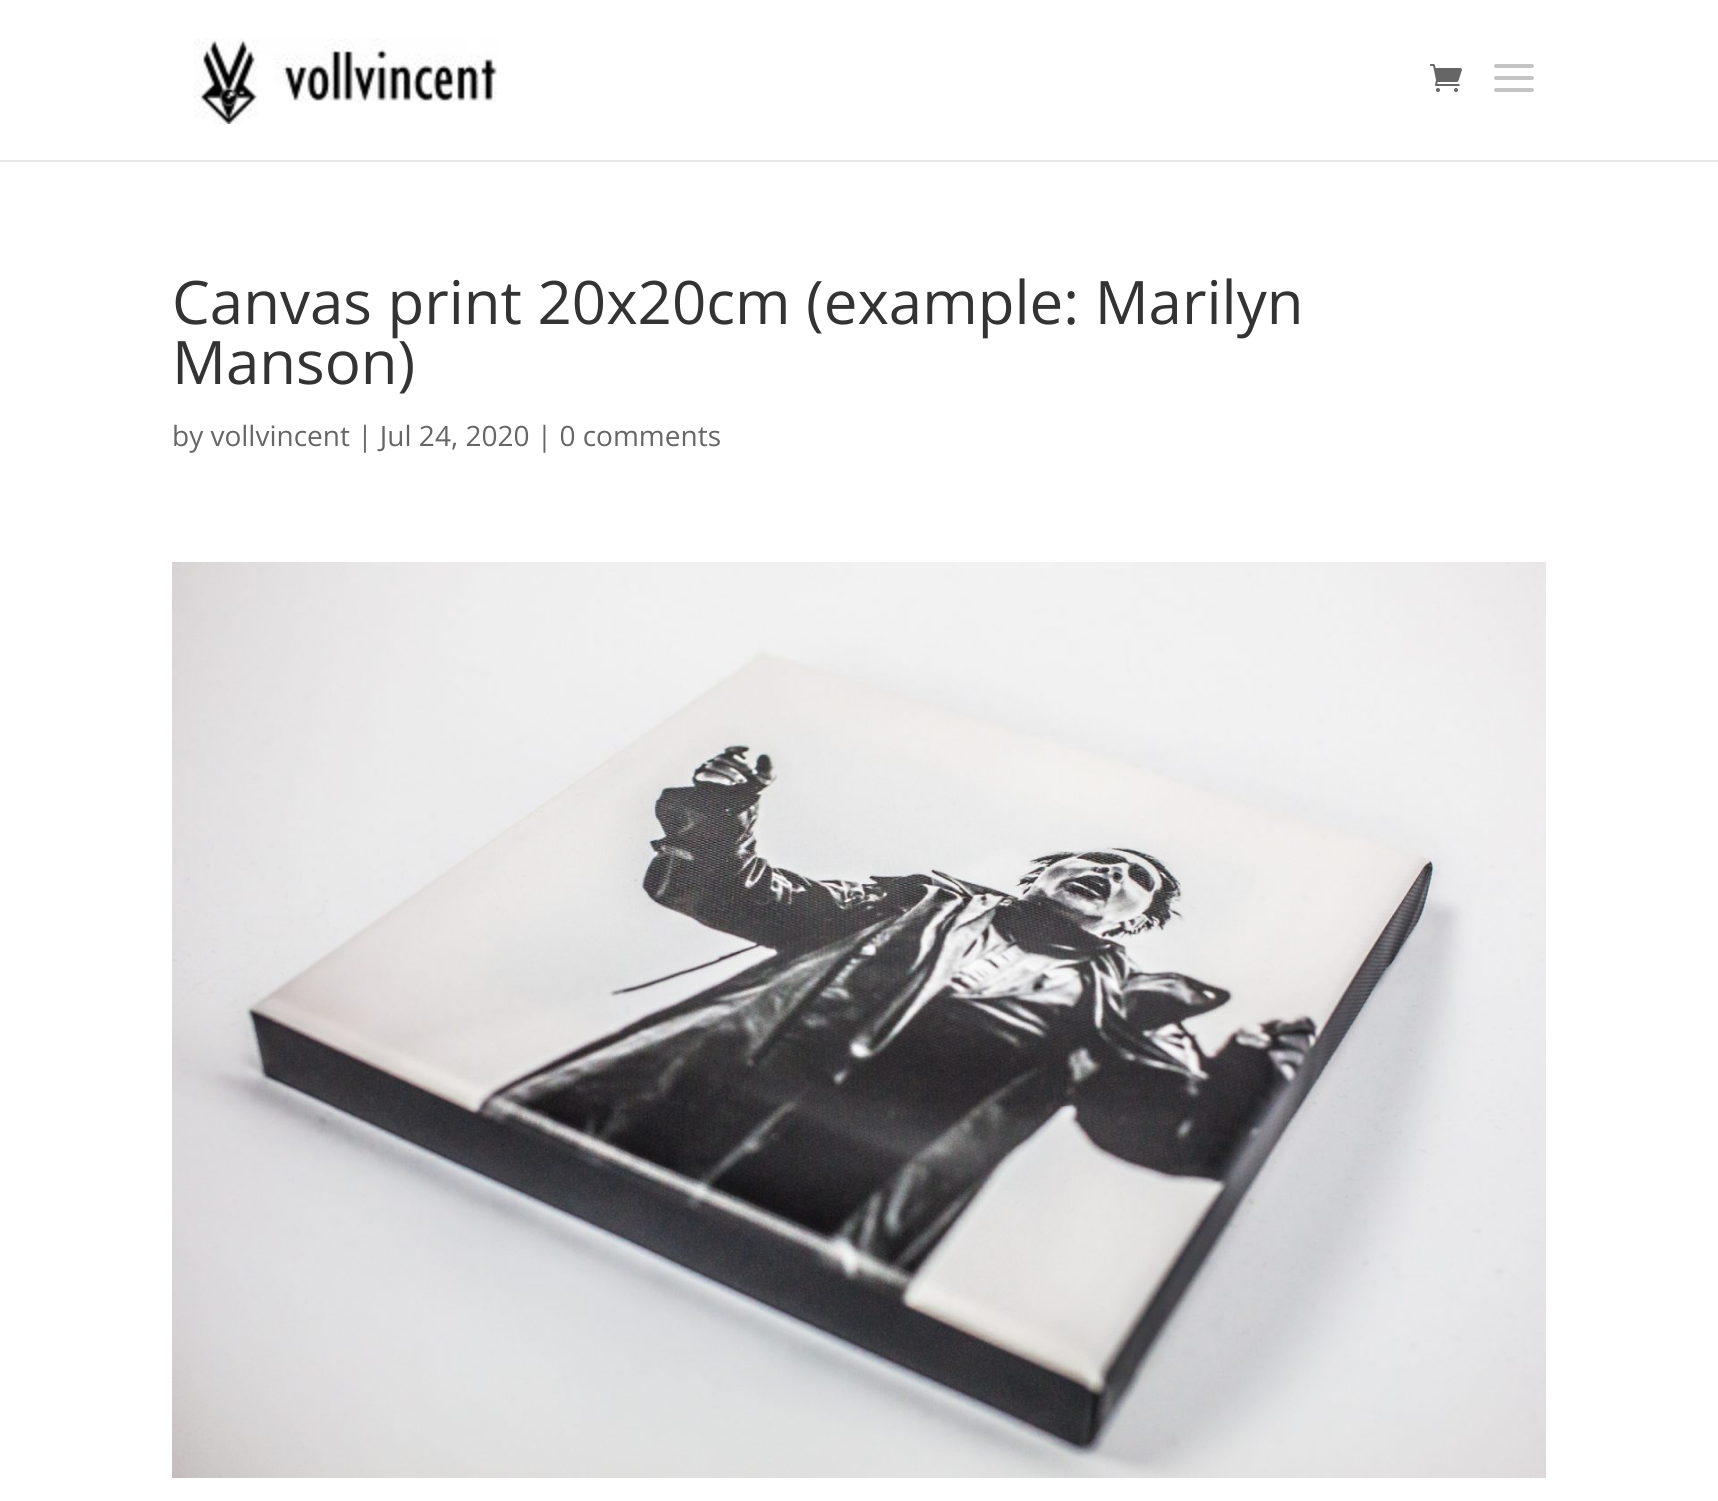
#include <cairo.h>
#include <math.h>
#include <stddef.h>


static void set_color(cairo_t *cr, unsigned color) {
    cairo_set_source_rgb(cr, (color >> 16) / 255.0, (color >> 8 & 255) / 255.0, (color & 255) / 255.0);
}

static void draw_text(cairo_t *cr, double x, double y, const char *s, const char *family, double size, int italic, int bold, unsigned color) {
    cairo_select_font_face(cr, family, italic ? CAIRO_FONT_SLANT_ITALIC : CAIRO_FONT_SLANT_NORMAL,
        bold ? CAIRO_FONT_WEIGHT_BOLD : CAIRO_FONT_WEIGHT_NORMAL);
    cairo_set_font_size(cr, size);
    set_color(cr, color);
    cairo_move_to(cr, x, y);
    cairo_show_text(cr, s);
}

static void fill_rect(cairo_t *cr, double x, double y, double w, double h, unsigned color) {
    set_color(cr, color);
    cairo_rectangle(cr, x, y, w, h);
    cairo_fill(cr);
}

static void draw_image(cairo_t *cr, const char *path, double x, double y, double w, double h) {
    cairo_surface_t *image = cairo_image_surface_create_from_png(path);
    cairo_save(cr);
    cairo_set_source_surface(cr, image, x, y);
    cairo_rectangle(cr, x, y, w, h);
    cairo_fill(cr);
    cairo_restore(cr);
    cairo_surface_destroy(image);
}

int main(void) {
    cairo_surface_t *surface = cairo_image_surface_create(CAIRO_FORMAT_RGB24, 1718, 1501);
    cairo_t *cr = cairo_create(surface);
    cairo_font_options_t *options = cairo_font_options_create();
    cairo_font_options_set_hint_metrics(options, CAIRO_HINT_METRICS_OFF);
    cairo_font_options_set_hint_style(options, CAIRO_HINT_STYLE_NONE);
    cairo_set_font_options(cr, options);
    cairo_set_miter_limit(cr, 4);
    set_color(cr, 0xFFFFFF);
    cairo_paint(cr);
    fill_rect(cr, 0, 160, 1718, 2, 0xE6E6E6);
    draw_image(cr, "assets/img1.png", 194, 38, 304, 86);
    draw_image(cr, "assets/img2.png", 1430, 64, 32, 28);
    draw_image(cr, "assets/img3.png", 1494, 64, 40, 28);
    draw_text(cr, 172, 324, "Canvas print 20x20cm (example: Marilyn", "Open Sans", 60, 0, 0, 0x333333);
    draw_text(cr, 172, 384, "Manson)", "Open Sans", 60, 0, 0, 0x333333);
    draw_text(cr, 172, 446, "by vollvincent | Jul 24, 2020 | 0 comments", "Open Sans", 28, 0, 0, 0x666666);
    draw_image(cr, "assets/img4.png", 172, 562, 1374, 916);
    cairo_surface_write_to_png(surface, "output.png");
    cairo_font_options_destroy(options);
    cairo_destroy(cr);
    cairo_surface_destroy(surface);
    return 0;
}
